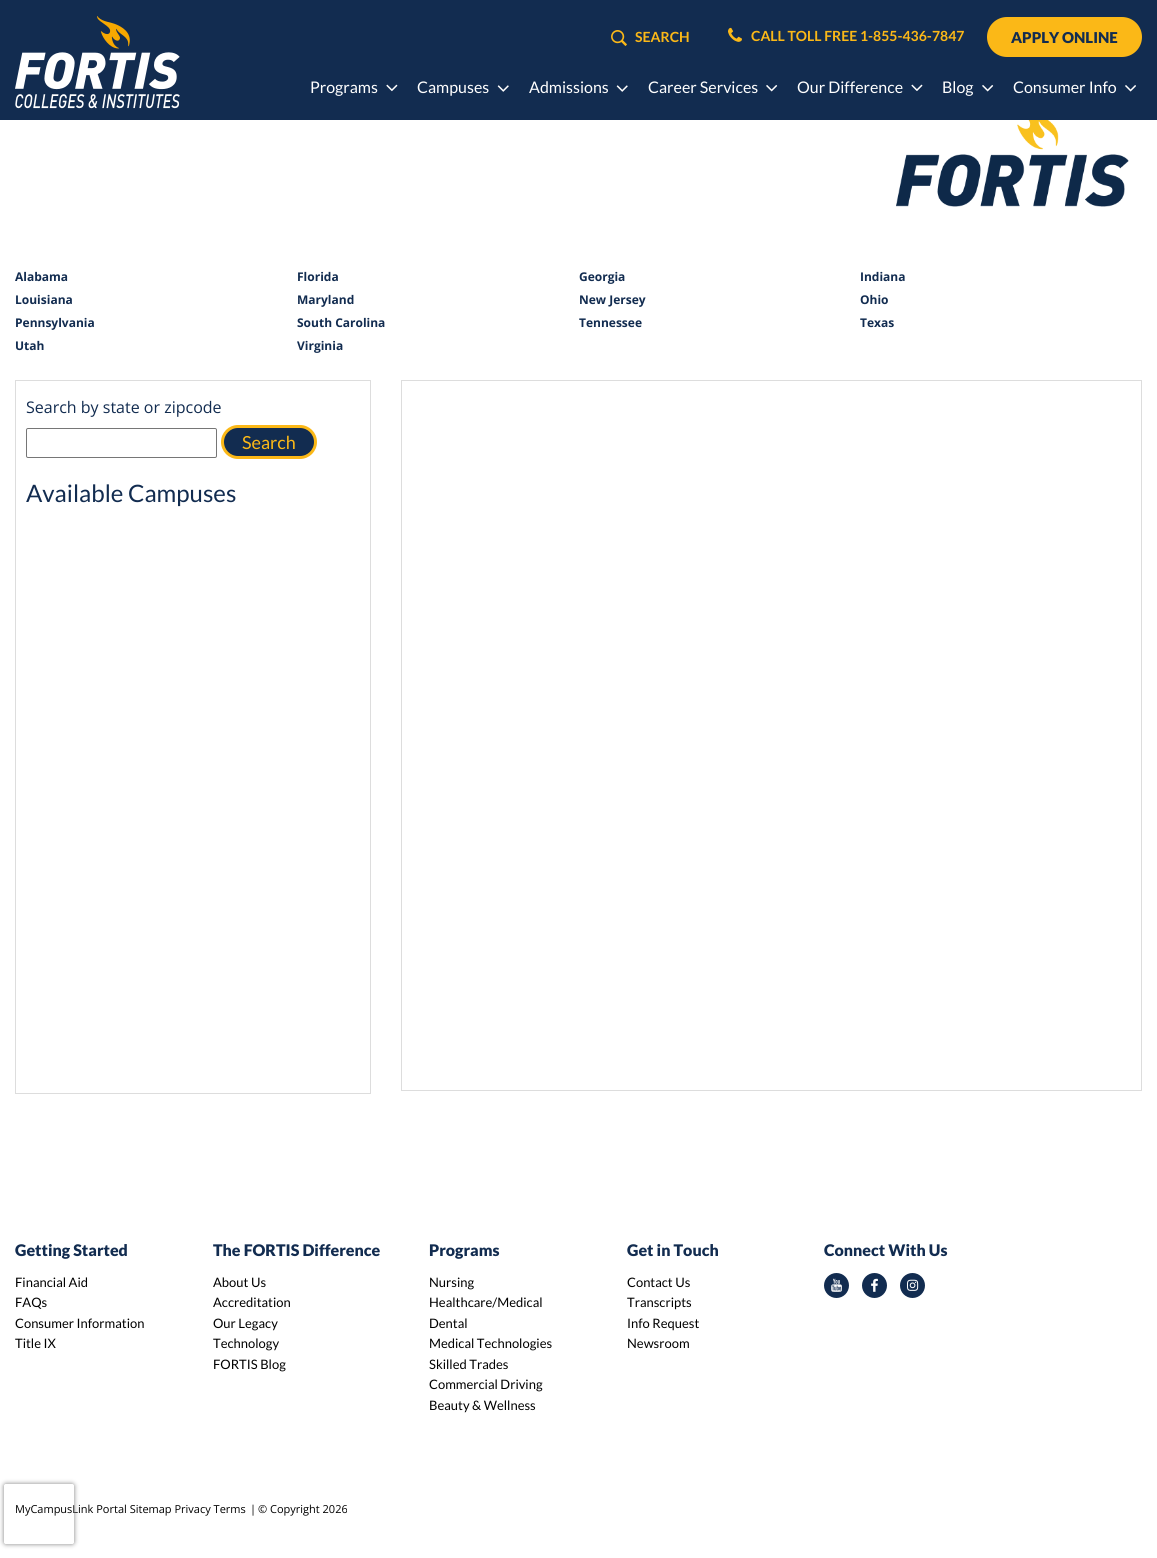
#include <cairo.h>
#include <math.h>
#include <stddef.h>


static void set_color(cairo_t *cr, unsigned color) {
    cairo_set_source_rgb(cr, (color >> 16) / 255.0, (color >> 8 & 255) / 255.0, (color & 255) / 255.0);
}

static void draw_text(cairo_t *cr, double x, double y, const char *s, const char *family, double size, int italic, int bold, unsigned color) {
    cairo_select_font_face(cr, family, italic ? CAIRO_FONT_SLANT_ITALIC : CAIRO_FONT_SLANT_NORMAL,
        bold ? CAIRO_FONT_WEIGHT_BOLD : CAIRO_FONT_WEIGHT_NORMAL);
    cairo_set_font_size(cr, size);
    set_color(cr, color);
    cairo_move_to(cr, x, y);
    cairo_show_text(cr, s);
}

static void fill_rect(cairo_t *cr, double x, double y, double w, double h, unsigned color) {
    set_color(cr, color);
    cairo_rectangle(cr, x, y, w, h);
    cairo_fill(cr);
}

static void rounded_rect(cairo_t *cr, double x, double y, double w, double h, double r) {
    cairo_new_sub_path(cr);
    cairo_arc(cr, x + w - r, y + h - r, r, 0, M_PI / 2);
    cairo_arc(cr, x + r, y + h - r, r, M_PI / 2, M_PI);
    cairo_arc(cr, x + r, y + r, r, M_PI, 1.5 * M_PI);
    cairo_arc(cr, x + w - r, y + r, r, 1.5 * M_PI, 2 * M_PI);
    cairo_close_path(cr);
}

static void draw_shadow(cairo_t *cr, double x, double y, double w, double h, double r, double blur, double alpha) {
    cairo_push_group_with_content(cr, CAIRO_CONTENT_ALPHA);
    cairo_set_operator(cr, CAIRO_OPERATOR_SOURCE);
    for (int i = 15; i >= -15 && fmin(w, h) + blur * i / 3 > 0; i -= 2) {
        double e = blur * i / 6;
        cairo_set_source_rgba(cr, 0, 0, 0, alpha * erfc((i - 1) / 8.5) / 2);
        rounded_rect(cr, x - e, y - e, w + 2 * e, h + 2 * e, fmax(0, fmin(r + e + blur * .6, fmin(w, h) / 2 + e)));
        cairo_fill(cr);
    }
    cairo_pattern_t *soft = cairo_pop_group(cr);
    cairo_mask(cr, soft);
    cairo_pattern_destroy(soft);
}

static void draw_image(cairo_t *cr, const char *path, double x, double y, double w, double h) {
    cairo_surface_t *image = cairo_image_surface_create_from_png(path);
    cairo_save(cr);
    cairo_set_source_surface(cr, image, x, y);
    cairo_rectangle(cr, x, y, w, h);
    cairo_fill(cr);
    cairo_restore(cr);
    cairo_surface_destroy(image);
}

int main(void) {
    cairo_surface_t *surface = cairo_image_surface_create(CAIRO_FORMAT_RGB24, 1157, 1558);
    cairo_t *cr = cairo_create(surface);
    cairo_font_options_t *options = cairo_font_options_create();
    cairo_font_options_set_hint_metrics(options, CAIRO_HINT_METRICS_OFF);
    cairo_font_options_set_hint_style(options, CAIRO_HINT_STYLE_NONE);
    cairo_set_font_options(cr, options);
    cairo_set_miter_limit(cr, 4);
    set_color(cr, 0xFFFFFF);
    cairo_paint(cr);
    fill_rect(cr, 0, 0, 1157, 120, 0x122C50);
    draw_image(cr, "assets/img1.png", 15, 16, 165, 93);
    draw_image(cr, "assets/img2.png", 611, 30, 16, 16);
    draw_text(cr, 635, 42, "SEARCH", "Lato", 14, 0, 1, 0xFBB817);
    draw_image(cr, "assets/img3.png", 728, 27, 14, 15);
    draw_text(cr, 751, 41, "CALL TOLL FREE 1-855-436-7847", "Lato", 14, 0, 1, 0xFBB817);
    rounded_rect(cr, 988.5, 18.5, 152, 37, 18.5);
    cairo_fill_preserve(cr);
    cairo_set_line_width(cr, 3);
    cairo_stroke(cr);
    draw_text(cr, 1011, 43, "APPLY ONLINE", "Lato Black", 15, 0, 0, 0x122C50);
    draw_text(cr, 310, 93, "Programs", "Lato", 16, 0, 0, 0xFFFFFF);
    draw_image(cr, "assets/img4.png", 386, 84, 12, 8);
    draw_text(cr, 417, 93, "Campuses", "Lato", 16, 0, 0, 0xFFFFFF);
    draw_image(cr, "assets/img5.png", 497, 85, 12, 7);
    draw_text(cr, 529, 93, "Admissions", "Lato", 16, 0, 0, 0xFFFFFF);
    draw_image(cr, "assets/img6.png", 616, 85, 12, 7);
    draw_text(cr, 648, 93, "Career Services", "Lato", 16, 0, 0, 0xFFFFFF);
    draw_image(cr, "assets/img7.png", 766, 85, 12, 7);
    draw_text(cr, 797, 93, "Our Difference", "Lato", 16, 0, 0, 0xFFFFFF);
    draw_image(cr, "assets/img8.png", 911, 84, 12, 7);
    draw_text(cr, 942, 93, "Blog", "Lato", 16, 0, 0, 0xFFFFFF);
    draw_image(cr, "assets/img9.png", 982, 85, 12, 7);
    draw_text(cr, 1013, 93, "Consumer Info", "Lato", 16, 0, 0, 0xFFFFFF);
    draw_image(cr, "assets/img10.png", 1125, 85, 11, 7);
    draw_image(cr, "assets/img11.png", 896, 120, 233, 87);
    draw_text(cr, 15, 281, "Alabama", "Open Sans", 12, 0, 1, 0x122C50);
    draw_text(cr, 297, 281, "Florida", "Open Sans", 12, 0, 1, 0x122C50);
    draw_text(cr, 579, 281, "Georgia", "Open Sans", 12, 0, 1, 0x122C50);
    draw_text(cr, 860, 281, "Indiana", "Open Sans", 12, 0, 1, 0x122C50);
    draw_text(cr, 15, 304, "Louisiana", "Open Sans", 12, 0, 1, 0x122C50);
    draw_text(cr, 297, 304, "Maryland", "Open Sans", 12, 0, 1, 0x122C50);
    draw_text(cr, 579, 304, "New Jersey", "Open Sans", 12, 0, 1, 0x122C50);
    draw_text(cr, 860, 304, "Ohio", "Open Sans", 12, 0, 1, 0x122C50);
    draw_text(cr, 15, 327, "Pennsylvania", "Open Sans", 12, 0, 1, 0x122C50);
    draw_text(cr, 297, 327, "South Carolina", "Open Sans", 12, 0, 1, 0x122C50);
    draw_text(cr, 579, 327, "Tennessee", "Open Sans", 12, 0, 1, 0x122C50);
    draw_text(cr, 860, 327, "Texas", "Open Sans", 12, 0, 1, 0x122C50);
    draw_text(cr, 15, 350, "Utah", "Open Sans", 12, 0, 1, 0x122C50);
    draw_text(cr, 297, 350, "Virginia", "Open Sans", 12, 0, 1, 0x122C50);
    cairo_rectangle(cr, 15.5, 380.5, 355, 713);
    set_color(cr, 0xDDDDDD);
    cairo_set_line_width(cr, 1);
    cairo_stroke(cr);
    draw_text(cr, 26, 413, "Search by state or zipcode", "Open Sans", 16, 0, 0, 0x122C50);
    rounded_rect(cr, 26.5, 428.5, 190, 29, 1.5);
    set_color(cr, 0x767676);
    cairo_stroke(cr);
    set_color(cr, 0x122C50);
    rounded_rect(cr, 222.5, 426.5, 93, 31, 15.5);
    cairo_fill_preserve(cr);
    set_color(cr, 0xFBB817);
    cairo_set_line_width(cr, 3);
    cairo_stroke(cr);
    draw_text(cr, 242, 449, "Search", "Lato", 18, 0, 0, 0xFBB817);
    draw_text(cr, 26, 502, "Available Campuses", "Lato", 24, 0, 0, 0x122C50);
    cairo_rectangle(cr, 401.5, 380.5, 740, 710);
    set_color(cr, 0xDDDDDD);
    cairo_set_line_width(cr, 1);
    cairo_stroke(cr);
    draw_text(cr, 15, 1256, "Getting Started", "Lato Black", 16, 0, 0, 0x122C50);
    draw_text(cr, 15, 1287, "Financial Aid", "Lato", 13, 0, 0, 0x000000);
    draw_text(cr, 15, 1307, "FAQs", "Lato", 13, 0, 0, 0x000000);
    draw_text(cr, 15, 1328, "Consumer Information", "Lato", 13, 0, 0, 0x000000);
    draw_text(cr, 15, 1348, "Title IX", "Lato", 13, 0, 0, 0x000000);
    draw_text(cr, 213, 1256, "The FORTIS Difference", "Lato Black", 16, 0, 0, 0x122C50);
    draw_text(cr, 213, 1287, "About Us", "Lato", 13, 0, 0, 0x000000);
    draw_text(cr, 213, 1307, "Accreditation", "Lato", 13, 0, 0, 0x000000);
    draw_text(cr, 213, 1328, "Our Legacy", "Lato", 13, 0, 0, 0x000000);
    draw_text(cr, 213, 1348, "Technology", "Lato", 13, 0, 0, 0x000000);
    draw_text(cr, 213, 1369, "FORTIS Blog", "Lato", 13, 0, 0, 0x000000);
    draw_text(cr, 429, 1256, "Programs", "Lato Black", 16, 0, 0, 0x122C50);
    draw_text(cr, 429, 1287, "Nursing", "Lato", 13, 0, 0, 0x000000);
    draw_text(cr, 429, 1307, "Healthcare/Medical", "Lato", 13, 0, 0, 0x000000);
    draw_text(cr, 429, 1328, "Dental", "Lato", 13, 0, 0, 0x000000);
    draw_text(cr, 429, 1348, "Medical Technologies", "Lato", 13, 0, 0, 0x000000);
    draw_text(cr, 429, 1369, "Skilled Trades", "Lato", 13, 0, 0, 0x000000);
    draw_text(cr, 429, 1389, "Commercial Driving", "Lato", 13, 0, 0, 0x000000);
    draw_text(cr, 429, 1410, "Beauty & Wellness", "Lato", 13, 0, 0, 0x000000);
    draw_text(cr, 627, 1256, "Get in Touch", "Lato Black", 16, 0, 0, 0x122C50);
    draw_text(cr, 627, 1287, "Contact Us", "Lato", 13, 0, 0, 0x000000);
    draw_text(cr, 627, 1307, "Transcripts", "Lato", 13, 0, 0, 0x000000);
    draw_text(cr, 627, 1328, "Info Request", "Lato", 13, 0, 0, 0x000000);
    draw_text(cr, 627, 1348, "Newsroom", "Lato", 13, 0, 0, 0x000000);
    draw_text(cr, 824, 1256, "Connect With Us", "Lato Black", 16, 0, 0, 0x122C50);
    cairo_new_path(cr);
    cairo_arc(cr, 836.5, 1285.5, 12.5, 0, 2 * M_PI);
    cairo_fill(cr);
    draw_image(cr, "assets/img12.png", 831, 1278, 11, 14);
    cairo_arc(cr, 874.5, 1285.5, 12.5, 0, 2 * M_PI);
    cairo_fill(cr);
    draw_image(cr, "assets/img13.png", 871, 1278, 7, 14);
    cairo_arc(cr, 912.5, 1285.5, 12.5, 0, 2 * M_PI);
    cairo_fill(cr);
    draw_image(cr, "assets/img14.png", 907, 1279, 12, 12);
    draw_text(cr, 15, 1513, "MyCampusLink Portal Sitemap Privacy Terms", "Open Sans", 11, 0, 0, 0x000000);
    draw_text(cr, 250, 1513, "|", "Open Sans", 11, 0, 0, 0x000000);
    draw_text(cr, 258, 1513, "© Copyright 2026", "Open Sans", 11, 0, 0, 0x000000);
    cairo_save(cr);
    cairo_set_fill_rule(cr, CAIRO_FILL_RULE_EVEN_ODD);
    cairo_new_path(cr);
    cairo_move_to(cr, 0, 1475);
    cairo_line_to(cr, 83, 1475);
    cairo_line_to(cr, 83, 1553);
    cairo_line_to(cr, 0, 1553);
    cairo_close_path(cr);
    cairo_move_to(cr, 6, 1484);
    cairo_line_to(cr, 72, 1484);
    cairo_curve_to(cr, 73, 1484, 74, 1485, 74, 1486);
    cairo_line_to(cr, 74, 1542);
    cairo_curve_to(cr, 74, 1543, 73, 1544, 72, 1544);
    cairo_line_to(cr, 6, 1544);
    cairo_curve_to(cr, 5, 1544, 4, 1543, 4, 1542);
    cairo_line_to(cr, 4, 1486);
    cairo_curve_to(cr, 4, 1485, 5, 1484, 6, 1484);
    cairo_close_path(cr);
    cairo_clip(cr);
    set_color(cr, 0x808080);
    draw_shadow(cr, 4, 1484, 70, 60, 2, 2.5, 1);
    cairo_restore(cr);
    cairo_surface_write_to_png(surface, "output.png");
    cairo_font_options_destroy(options);
    cairo_destroy(cr);
    cairo_surface_destroy(surface);
    return 0;
}
